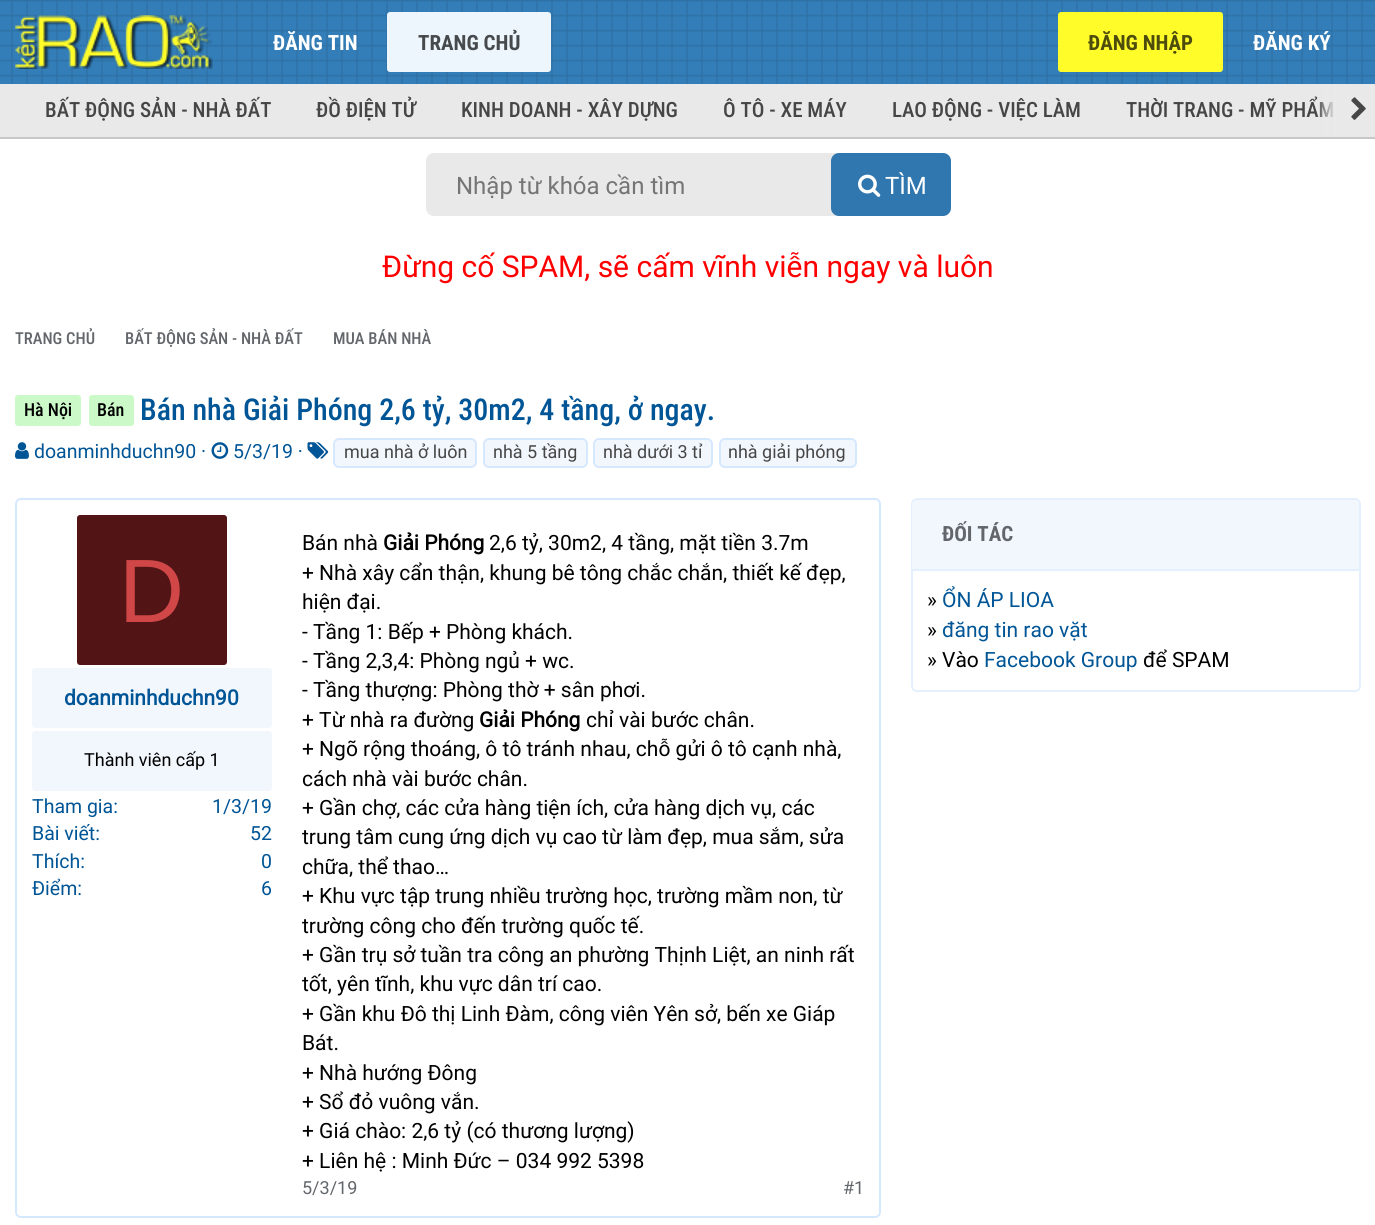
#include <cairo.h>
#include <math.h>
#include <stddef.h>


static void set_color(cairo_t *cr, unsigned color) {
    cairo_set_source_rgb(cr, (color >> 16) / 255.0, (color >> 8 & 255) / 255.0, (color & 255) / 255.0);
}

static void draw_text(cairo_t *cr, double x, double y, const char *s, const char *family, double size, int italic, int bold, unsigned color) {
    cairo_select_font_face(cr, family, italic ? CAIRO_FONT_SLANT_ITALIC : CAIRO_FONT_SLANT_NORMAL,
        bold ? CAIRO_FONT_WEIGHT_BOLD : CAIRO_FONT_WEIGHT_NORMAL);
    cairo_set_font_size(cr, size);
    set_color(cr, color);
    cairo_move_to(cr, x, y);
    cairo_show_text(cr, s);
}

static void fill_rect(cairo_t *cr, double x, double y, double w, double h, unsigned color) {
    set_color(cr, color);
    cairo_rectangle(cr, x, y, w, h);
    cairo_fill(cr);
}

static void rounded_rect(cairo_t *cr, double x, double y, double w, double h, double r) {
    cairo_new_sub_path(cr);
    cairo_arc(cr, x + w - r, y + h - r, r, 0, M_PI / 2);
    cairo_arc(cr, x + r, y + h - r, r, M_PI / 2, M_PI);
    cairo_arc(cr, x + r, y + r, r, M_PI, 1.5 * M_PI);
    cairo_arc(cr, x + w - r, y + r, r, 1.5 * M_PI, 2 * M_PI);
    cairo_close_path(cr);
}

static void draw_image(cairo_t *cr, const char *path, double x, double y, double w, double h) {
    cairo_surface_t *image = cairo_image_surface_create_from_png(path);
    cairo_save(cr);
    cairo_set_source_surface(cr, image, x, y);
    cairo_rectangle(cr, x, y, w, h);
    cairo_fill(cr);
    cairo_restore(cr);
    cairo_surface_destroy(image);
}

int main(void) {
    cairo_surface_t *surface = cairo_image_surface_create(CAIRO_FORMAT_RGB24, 1375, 1225);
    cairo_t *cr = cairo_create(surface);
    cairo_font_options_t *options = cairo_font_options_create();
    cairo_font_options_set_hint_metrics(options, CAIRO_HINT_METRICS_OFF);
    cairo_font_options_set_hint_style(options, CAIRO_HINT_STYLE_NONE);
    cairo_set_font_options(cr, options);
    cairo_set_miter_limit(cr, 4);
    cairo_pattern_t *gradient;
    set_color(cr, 0xFFFFFF);
    cairo_paint(cr);
    draw_image(cr, "assets/img1.png", 0, 0, 1375, 84);
    draw_image(cr, "assets/img2.png", 15, 15, 198, 54);
    draw_text(cr, 273, 50, "ĐĂNG TIN", "Roboto Condensed", 21, 0, 1, 0xFFFFFF);
    set_color(cr, 0xEDF6FD);
    rounded_rect(cr, 387, 12, 164, 60, 3);
    cairo_fill(cr);
    draw_text(cr, 418, 50, "TRANG CHỦ", "Roboto Condensed", 21, 0, 1, 0x474A4C);
    set_color(cr, 0xFFFC2A);
    rounded_rect(cr, 1058, 12, 165, 60, 3);
    cairo_fill(cr);
    draw_text(cr, 1088, 50, "ĐĂNG NHẬP", "Roboto Condensed", 21, 0, 1, 0x4D4C0D);
    draw_text(cr, 1253, 50, "ĐĂNG KÝ", "Roboto Condensed", 21, 0, 1, 0xFFFFFF);
    fill_rect(cr, 0, 84, 1336, 53, 0xE9E9E9);
    fill_rect(cr, 0, 137, 1375, 2, 0xC7C7C7);
    draw_text(cr, 45, 117, "BẤT ĐỘNG SẢN - NHÀ ĐẤT", "Roboto Condensed Medium", 21, 0, 0, 0x464646);
    draw_text(cr, 316, 117, "ĐỒ ĐIỆN TỬ", "Roboto Condensed Medium", 21, 0, 0, 0x464646);
    draw_text(cr, 461, 117, "KINH DOANH - XÂY DỰNG", "Roboto Condensed Medium", 21, 0, 0, 0x464646);
    draw_text(cr, 723, 117, "Ô TÔ - XE MÁY", "Roboto Condensed Medium", 21, 0, 0, 0x464646);
    draw_text(cr, 892, 117, "LAO ĐỘNG - VIỆC LÀM", "Roboto Condensed Medium", 21, 0, 0, 0x464646);
    draw_text(cr, 1126, 117, "THỜI TRANG - MỸ PHẨM", "Roboto Condensed Medium", 21, 0, 0, 0x464646);
    gradient = cairo_pattern_create_linear(1316, 110, 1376, 110);
    cairo_pattern_add_color_stop_rgba(gradient, 0, 0.914, 0.914, 0.914, 0);
    cairo_pattern_add_color_stop_rgba(gradient, 0.33, 0.914, 0.914, 0.914, 1);
    cairo_set_source(cr, gradient);
    cairo_pattern_destroy(gradient);
    cairo_rectangle(cr, 1316, 84, 59, 53);
    cairo_fill(cr);
    draw_image(cr, "assets/img3.png", 1351, 97, 15, 23);
    set_color(cr, 0xE9E9E9);
    rounded_rect(cr, 426, 153, 525, 63, 8);
    cairo_fill(cr);
    draw_text(cr, 456, 194, "Nhập từ khóa cần tìm", "Roboto", 24, 0, 0, 0x757575);
    set_color(cr, 0x3077AF);
    rounded_rect(cr, 831, 153, 120, 63, 8);
    cairo_fill(cr);
    draw_image(cr, "assets/img4.png", 858, 174, 23, 23);
    draw_text(cr, 885, 194, "TÌM", "Roboto", 24, 0, 0, 0xFFFFFF);
    draw_text(cr, 382, 277, "Đừng cố SPAM, sẽ cấm vĩnh viễn ngay và luôn", "Roboto", 30, 0, 0, 0xFF0000);
    draw_text(cr, 15, 344, "TRANG CHỦ", "Roboto Condensed Medium", 16.5, 0, 0, 0x63666A);
    draw_text(cr, 125, 344, "BẤT ĐỘNG SẢN - NHÀ ĐẤT", "Roboto Condensed Medium", 16.5, 0, 0, 0x63666A);
    draw_text(cr, 333, 344, "MUA BÁN NHÀ", "Roboto Condensed Medium", 16.5, 0, 0, 0x63666A);
    set_color(cr, 0xCCF9C8);
    rounded_rect(cr, 15, 395, 66, 31, 3);
    cairo_fill(cr);
    draw_text(cr, 24, 416, "Hà Nội", "Roboto Condensed Medium", 18, 0, 0, 0x000000);
    set_color(cr, 0xCCF9C8);
    rounded_rect(cr, 89, 395, 45, 31, 3);
    cairo_fill(cr);
    draw_text(cr, 97, 416, "Bán", "Roboto Condensed Medium", 18, 0, 0, 0x000000);
    draw_text(cr, 140, 420, "Bán nhà Giải Phóng 2,6 tỷ, 30m2, 4 tầng, ở ngay.", "Roboto Condensed Medium", 30, 0, 0, 0x005596);
    draw_image(cr, "assets/img5.png", 15, 442, 14, 17);
    draw_text(cr, 34, 458, "doanminhduchn90 ·", "Roboto", 19.5, 0, 0, 0x005596);
    draw_image(cr, "assets/img6.png", 211, 442, 18, 17);
    draw_text(cr, 233, 458, "5/3/19 ·", "Roboto", 19.5, 0, 0, 0x005596);
    draw_image(cr, "assets/img7.png", 307, 442, 22, 17);
    set_color(cr, 0xF2F7FD);
    rounded_rect(cr, 334, 439, 142, 28, 5);
    cairo_fill_preserve(cr);
    set_color(cr, 0xD6E8FD);
    cairo_stroke(cr);
    draw_text(cr, 344, 458, "mua nhà ở luôn", "Roboto", 18, 0, 0, 0x464646);
    set_color(cr, 0xF2F7FD);
    rounded_rect(cr, 484, 439, 103, 28, 5);
    cairo_fill_preserve(cr);
    set_color(cr, 0xD6E8FD);
    cairo_stroke(cr);
    draw_text(cr, 493, 458, "nhà 5 tầng", "Roboto", 18, 0, 0, 0x464646);
    set_color(cr, 0xF2F7FD);
    rounded_rect(cr, 594, 439, 118, 28, 5);
    cairo_fill_preserve(cr);
    set_color(cr, 0xD6E8FD);
    cairo_stroke(cr);
    draw_text(cr, 603, 458, "nhà dưới 3 tỉ", "Roboto", 18, 0, 0, 0x464646);
    set_color(cr, 0xF2F7FD);
    rounded_rect(cr, 720, 439, 136, 28, 5);
    cairo_fill_preserve(cr);
    set_color(cr, 0xD6E8FD);
    cairo_stroke(cr);
    draw_text(cr, 728, 458, "nhà giải phóng", "Roboto", 18, 0, 0, 0x464646);
    rounded_rect(cr, 16, 499, 864, 718, 5);
    set_color(cr, 0xD6E8FD);
    cairo_stroke(cr);
    set_color(cr, 0x521414);
    rounded_rect(cr, 77, 515, 150, 150, 3);
    cairo_fill(cr);
    draw_text(cr, 119, 622, "D", "Liberation Sans", 90, 0, 0, 0xD14747);
    set_color(cr, 0xF2F7FD);
    rounded_rect(cr, 32, 668, 240, 60, 3);
    cairo_fill(cr);
    draw_text(cr, 64, 705, "doanminhduchn90", "Roboto", 21, 0, 1, 0x005596);
    set_color(cr, 0xF2F7FD);
    rounded_rect(cr, 32, 731, 240, 60, 3);
    cairo_fill(cr);
    draw_text(cr, 84, 766, "Thành viên cấp 1", "Roboto", 18, 0, 0, 0x000000);
    draw_text(cr, 32, 813, "Tham gia:", "Roboto", 19.5, 0, 0, 0x005596);
    draw_text(cr, 212, 813, "1/3/19", "Roboto", 19.5, 0, 0, 0x005596);
    draw_text(cr, 32, 840, "Bài viết:", "Roboto", 19.5, 0, 0, 0x005596);
    draw_text(cr, 250, 840, "52", "Roboto", 19.5, 0, 0, 0x005596);
    draw_text(cr, 32, 868, "Thích:", "Roboto", 19.5, 0, 0, 0x005596);
    draw_text(cr, 261, 868, "0", "Roboto", 19.5, 0, 0, 0x005596);
    draw_text(cr, 32, 895, "Điểm:", "Roboto", 19.5, 0, 0, 0x005596);
    draw_text(cr, 261, 895, "6", "Roboto", 19.5, 0, 0, 0x005596);
    draw_text(cr, 302, 550, "Bán nhà", "Roboto", 21, 0, 0, 0x000000);
    draw_text(cr, 383, 550, "Giải Phóng", "Roboto", 21, 0, 1, 0x000000);
    draw_text(cr, 489, 550, "2,6 tỷ, 30m2, 4 tầng, mặt tiền 3.7m", "Roboto", 21, 0, 0, 0x000000);
    draw_text(cr, 302, 580, "+ Nhà xây cẩn thận, khung bê tông chắc chắn, thiết kế đẹp,", "Roboto", 21, 0, 0, 0x000000);
    draw_text(cr, 302, 609, "hiện đại.", "Roboto", 21, 0, 0, 0x000000);
    draw_text(cr, 302, 639, "- Tầng 1: Bếp + Phòng khách.", "Roboto", 21, 0, 0, 0x000000);
    draw_text(cr, 302, 668, "- Tầng 2,3,4: Phòng ngủ + wc.", "Roboto", 21, 0, 0, 0x000000);
    draw_text(cr, 302, 697, "- Tầng thượng: Phòng thờ + sân phơi.", "Roboto", 21, 0, 0, 0x000000);
    draw_text(cr, 302, 727, "+ Từ nhà ra đường", "Roboto", 21, 0, 0, 0x000000);
    draw_text(cr, 479, 727, "Giải Phóng", "Roboto", 21, 0, 1, 0x000000);
    draw_text(cr, 586, 727, "chỉ vài bước chân.", "Roboto", 21, 0, 0, 0x000000);
    draw_text(cr, 302, 756, "+ Ngõ rộng thoáng, ô tô tránh nhau, chỗ gửi ô tô cạnh nhà,", "Roboto", 21, 0, 0, 0x000000);
    draw_text(cr, 302, 786, "cách nhà vài bước chân.", "Roboto", 21, 0, 0, 0x000000);
    draw_text(cr, 302, 815, "+ Gần chợ, các cửa hàng tiện ích, cửa hàng dịch vụ, các", "Roboto", 21, 0, 0, 0x000000);
    draw_text(cr, 302, 844, "trung tâm cung ứng dịch vụ cao từ làm đẹp, mua sắm, sửa", "Roboto", 21, 0, 0, 0x000000);
    draw_text(cr, 302, 874, "chữa, thể thao…", "Roboto", 21, 0, 0, 0x000000);
    draw_text(cr, 302, 903, "+ Khu vực tập trung nhiều trường học, trường mầm non, từ", "Roboto", 21, 0, 0, 0x000000);
    draw_text(cr, 302, 933, "trường công cho đến trường quốc tế.", "Roboto", 21, 0, 0, 0x000000);
    draw_text(cr, 302, 962, "+ Gần trụ sở tuần tra công an phường Thịnh Liệt, an ninh rất", "Roboto", 21, 0, 0, 0x000000);
    draw_text(cr, 302, 991, "tốt, yên tĩnh, khu vực dân trí cao.", "Roboto", 21, 0, 0, 0x000000);
    draw_text(cr, 302, 1021, "+ Gần khu Đô thị Linh Đàm, công viên Yên sở, bến xe Giáp", "Roboto", 21, 0, 0, 0x000000);
    draw_text(cr, 302, 1050, "Bát.", "Roboto", 21, 0, 0, 0x000000);
    draw_text(cr, 302, 1080, "+ Nhà hướng Đông", "Roboto", 21, 0, 0, 0x000000);
    draw_text(cr, 302, 1109, "+ Sổ đỏ vuông vắn.", "Roboto", 21, 0, 0, 0x000000);
    draw_text(cr, 302, 1138, "+ Giá chào: 2,6 tỷ (có thương lượng)", "Roboto", 21, 0, 0, 0x000000);
    draw_text(cr, 302, 1168, "+ Liên hệ : Minh Đức – 034 992 5398", "Roboto", 21, 0, 0, 0x000000);
    draw_text(cr, 302, 1194, "5/3/19", "Roboto", 18, 0, 0, 0x63666A);
    draw_text(cr, 843, 1194, "#1", "Roboto", 18, 0, 0, 0x63666A);
    rounded_rect(cr, 912, 499, 448, 192, 5);
    set_color(cr, 0xE5F0FE);
    cairo_stroke(cr);
    set_color(cr, 0xF2F7FD);
    cairo_new_path(cr);
    cairo_move_to(cr, 917, 500);
    cairo_line_to(cr, 1354, 500);
    cairo_curve_to(cr, 1357, 500, 1359, 502, 1359, 505);
    cairo_line_to(cr, 1359, 570);
    cairo_line_to(cr, 912, 570);
    cairo_line_to(cr, 912, 505);
    cairo_curve_to(cr, 912, 502, 914, 500, 917, 500);
    cairo_close_path(cr);
    cairo_fill(cr);
    fill_rect(cr, 912, 569, 447, 2, 0xE5F0FE);
    draw_text(cr, 942, 541, "ĐỐI TÁC", "Roboto Condensed", 21, 0, 1, 0x63666A);
    draw_text(cr, 927, 607, "»", "Roboto", 21, 0, 0, 0x000000);
    draw_text(cr, 942, 607, "ỔN ÁP LIOA", "Roboto", 21, 0, 0, 0x005596);
    draw_text(cr, 927, 637, "»", "Roboto", 21, 0, 0, 0x000000);
    draw_text(cr, 942, 637, "đăng tin rao vặt", "Roboto", 21, 0, 0, 0x005596);
    draw_text(cr, 927, 667, "» Vào", "Roboto", 21, 0, 0, 0x000000);
    draw_text(cr, 984, 667, "Facebook Group", "Roboto", 21, 0, 0, 0x005596);
    draw_text(cr, 1143, 667, "để SPAM", "Roboto", 21, 0, 0, 0x000000);
    cairo_surface_write_to_png(surface, "output.png");
    cairo_font_options_destroy(options);
    cairo_destroy(cr);
    cairo_surface_destroy(surface);
    return 0;
}
